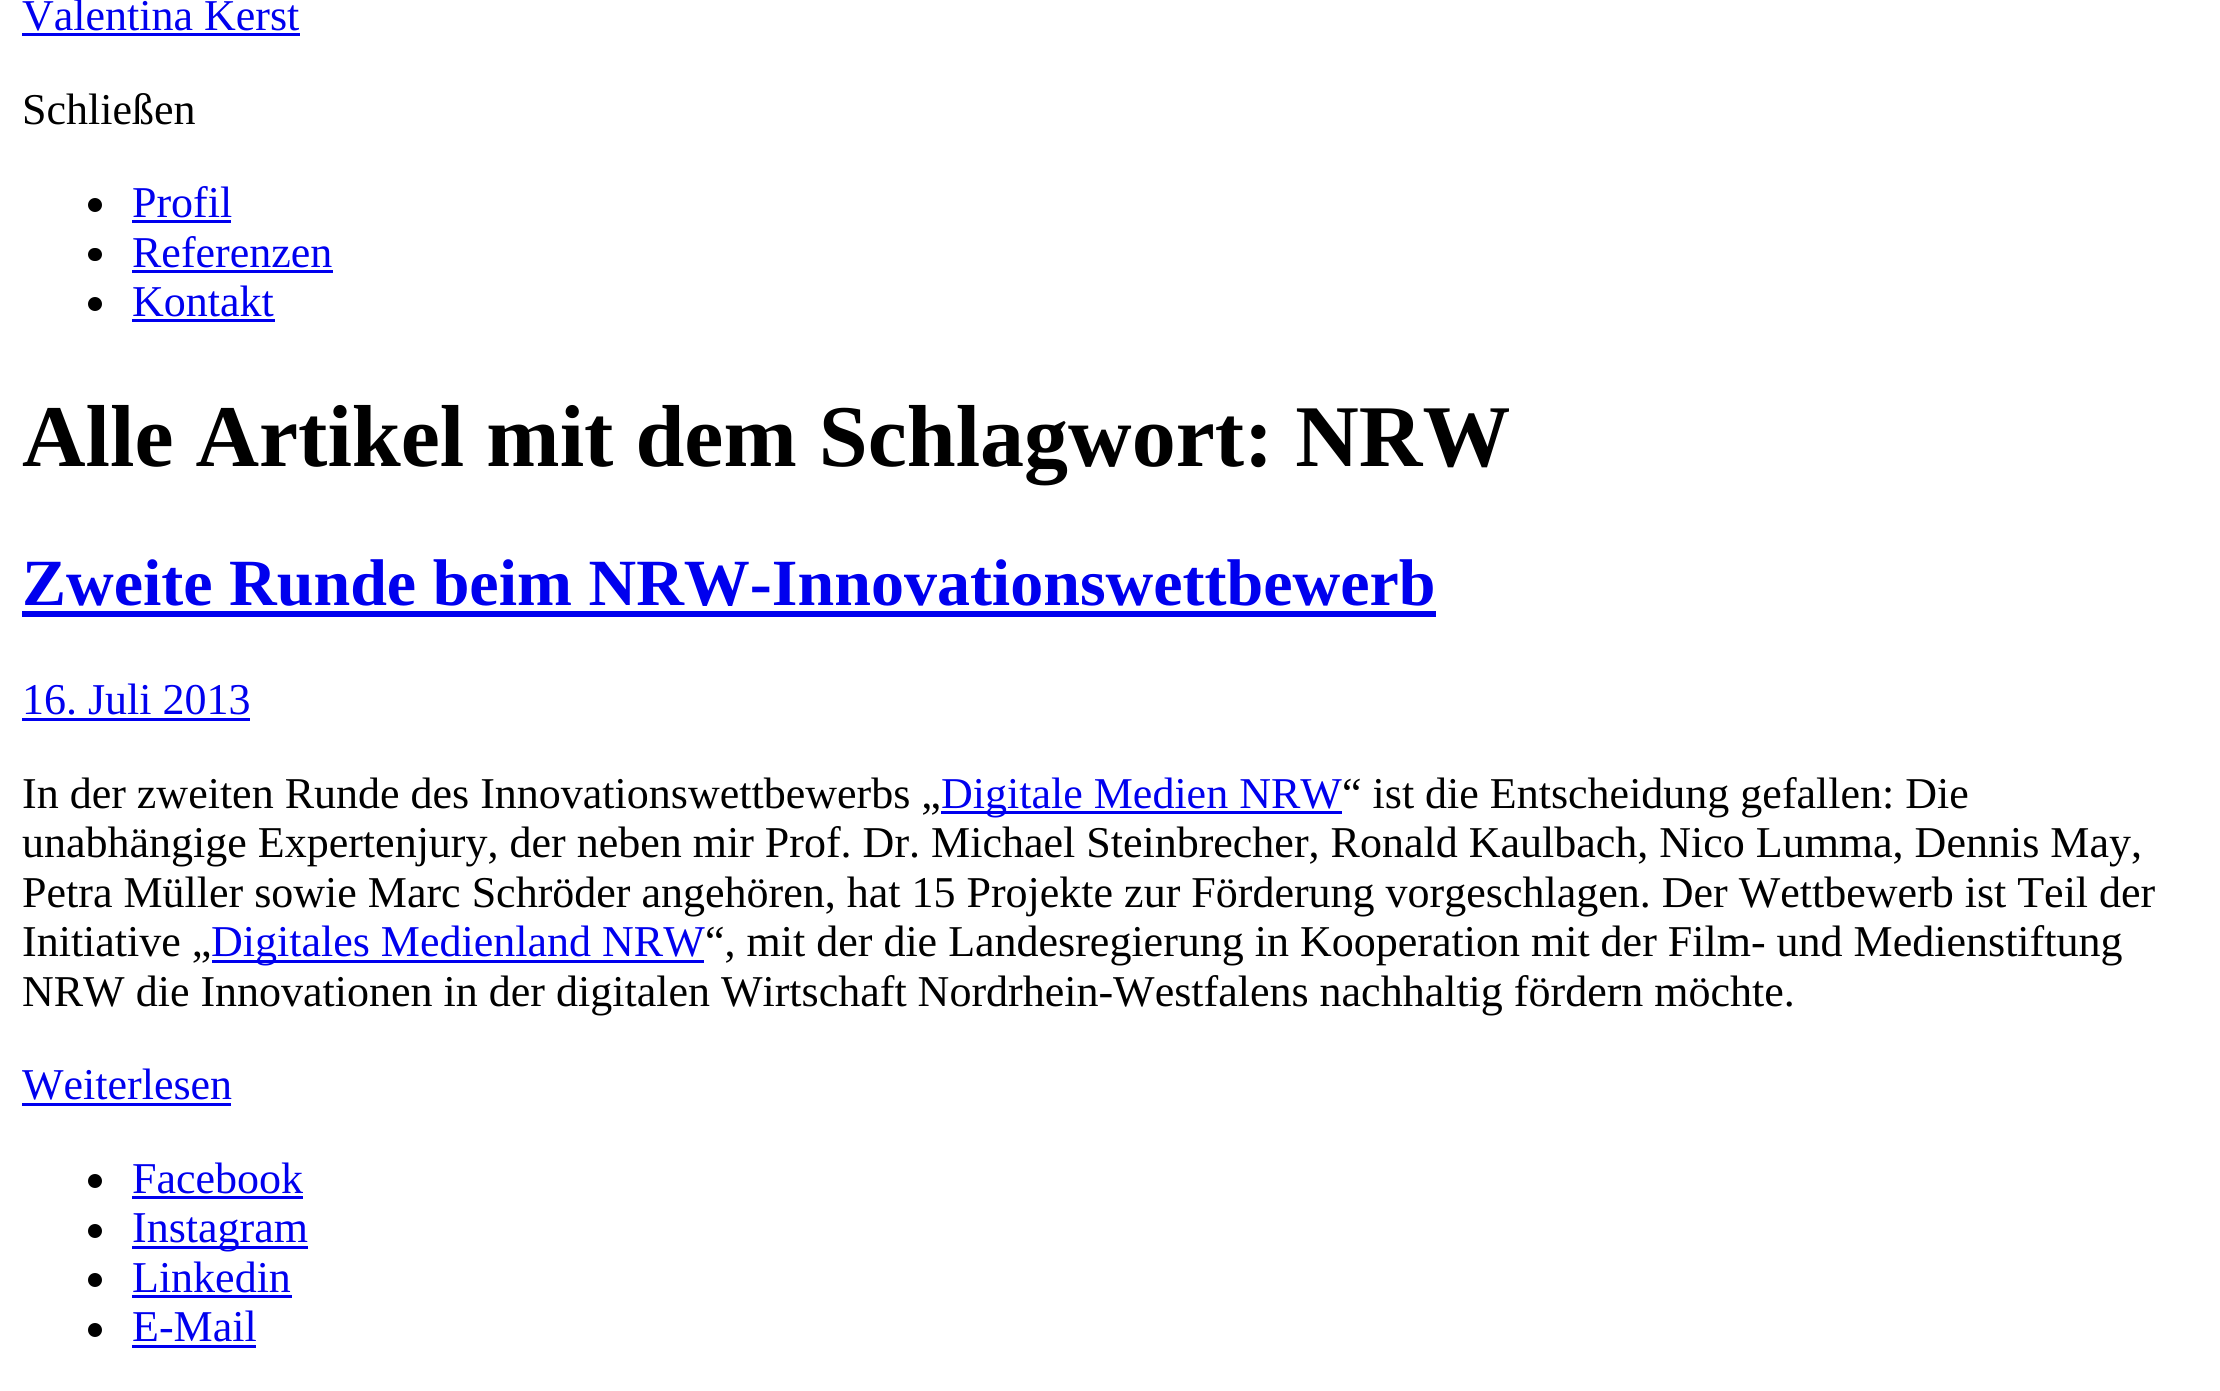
#include <cairo.h>
#include <math.h>
#include <stddef.h>


static void set_color(cairo_t *cr, unsigned color) {
    cairo_set_source_rgb(cr, (color >> 16) / 255.0, (color >> 8 & 255) / 255.0, (color & 255) / 255.0);
}

static void draw_text(cairo_t *cr, double x, double y, const char *s, const char *family, double size, int italic, int bold, unsigned color) {
    cairo_select_font_face(cr, family, italic ? CAIRO_FONT_SLANT_ITALIC : CAIRO_FONT_SLANT_NORMAL,
        bold ? CAIRO_FONT_WEIGHT_BOLD : CAIRO_FONT_WEIGHT_NORMAL);
    cairo_set_font_size(cr, size);
    set_color(cr, color);
    cairo_move_to(cr, x, y);
    cairo_show_text(cr, s);
}

static void fill_rect(cairo_t *cr, double x, double y, double w, double h, unsigned color) {
    set_color(cr, color);
    cairo_rectangle(cr, x, y, w, h);
    cairo_fill(cr);
}

static void rounded_rect(cairo_t *cr, double x, double y, double w, double h, double r) {
    cairo_new_sub_path(cr);
    cairo_arc(cr, x + w - r, y + h - r, r, 0, M_PI / 2);
    cairo_arc(cr, x + r, y + h - r, r, M_PI / 2, M_PI);
    cairo_arc(cr, x + r, y + r, r, M_PI, 1.5 * M_PI);
    cairo_arc(cr, x + w - r, y + r, r, 1.5 * M_PI, 2 * M_PI);
    cairo_close_path(cr);
}

int main(void) {
    cairo_surface_t *surface = cairo_image_surface_create(CAIRO_FORMAT_RGB24, 2220, 1391);
    cairo_t *cr = cairo_create(surface);
    cairo_font_options_t *options = cairo_font_options_create();
    cairo_font_options_set_hint_metrics(options, CAIRO_HINT_METRICS_OFF);
    cairo_font_options_set_hint_style(options, CAIRO_HINT_STYLE_NONE);
    cairo_set_font_options(cr, options);
    cairo_set_miter_limit(cr, 4);
    set_color(cr, 0xFFFFFF);
    cairo_paint(cr);
    draw_text(cr, 22, 30, "Valentina Kerst", "Liberation Serif", 44, 0, 0, 0x0000EE);
    fill_rect(cr, 22, 33, 278, 3, 0x0000EE);
    draw_text(cr, 22, 124, "Schließen", "Liberation Serif", 44, 0, 0, 0x000000);
    cairo_new_path(cr);
    cairo_arc(cr, 95, 205, 7, 0, 2 * M_PI);
    cairo_fill(cr);
    draw_text(cr, 132, 217, "Profil", "Liberation Serif", 44, 0, 0, 0x0000EE);
    fill_rect(cr, 132, 220, 99, 3, 0x0000EE);
    set_color(cr, 0x000000);
    rounded_rect(cr, 88, 248, 14, 13, 6.5);
    cairo_fill(cr);
    draw_text(cr, 132, 267, "Referenzen", "Liberation Serif", 44, 0, 0, 0x0000EE);
    fill_rect(cr, 132, 270, 201, 3, 0x0000EE);
    set_color(cr, 0x000000);
    cairo_new_path(cr);
    cairo_arc(cr, 95, 304, 7, 0, 2 * M_PI);
    cairo_fill(cr);
    draw_text(cr, 132, 316, "Kontakt", "Liberation Serif", 44, 0, 0, 0x0000EE);
    fill_rect(cr, 132, 319, 143, 3, 0x0000EE);
    draw_text(cr, 22, 466, "Alle Artikel mit dem Schlagwort: NRW", "Liberation Serif", 88, 0, 1, 0x000000);
    draw_text(cr, 22, 605, "Zweite Runde beim NRW-Innovationswettbewerb", "Liberation Serif", 66, 0, 1, 0x0000EE);
    fill_rect(cr, 22, 611, 1414, 6, 0x0000EE);
    draw_text(cr, 22, 714, "16. Juli 2013", "Liberation Serif", 44, 0, 0, 0x0000EE);
    fill_rect(cr, 22, 718, 228, 3, 0x0000EE);
    draw_text(cr, 22, 808, "In der zweiten Runde des Innovationswettbewerbs „", "Liberation Serif", 44, 0, 0, 0x000000);
    fill_rect(cr, 941, 811, 401, 3, 0x0000EE);
    draw_text(cr, 941, 808, "Digitale Medien NRW", "Liberation Serif", 44, 0, 0, 0x0000EE);
    draw_text(cr, 1342, 808, "“ ist die Entscheidung gefallen: Die", "Liberation Serif", 44, 0, 0, 0x000000);
    draw_text(cr, 22, 857, "unabhängige Expertenjury, der neben mir Prof. Dr. Michael Steinbrecher, Ronald Kaulbach, Nico Lumma, Dennis May,", "Liberation Serif", 44, 0, 0, 0x000000);
    draw_text(cr, 22, 907, "Petra Müller sowie Marc Schröder angehören, hat 15 Projekte zur Förderung vorgeschlagen. Der Wettbewerb ist Teil der", "Liberation Serif", 44, 0, 0, 0x000000);
    draw_text(cr, 22, 956, "Initiative „", "Liberation Serif", 44, 0, 0, 0x000000);
    fill_rect(cr, 212, 960, 492, 3, 0x0000EE);
    draw_text(cr, 211, 956, "Digitales Medienland NRW", "Liberation Serif", 44, 0, 0, 0x0000EE);
    draw_text(cr, 705, 956, "“, mit der die Landesregierung in Kooperation mit der Film- und Medienstiftung", "Liberation Serif", 44, 0, 0, 0x000000);
    draw_text(cr, 22, 1006, "NRW die Innovationen in der digitalen Wirtschaft Nordrhein-Westfalens nachhaltig fördern möchte.", "Liberation Serif", 44, 0, 0, 0x000000);
    draw_text(cr, 22, 1099, "Weiterlesen", "Liberation Serif", 44, 0, 0, 0x0000EE);
    fill_rect(cr, 22, 1103, 209, 3, 0x0000EE);
    set_color(cr, 0x000000);
    cairo_new_path(cr);
    cairo_arc(cr, 95, 1181, 7, 0, 2 * M_PI);
    cairo_fill(cr);
    draw_text(cr, 132, 1193, "Facebook", "Liberation Serif", 44, 0, 0, 0x0000EE);
    fill_rect(cr, 132, 1196, 171, 3, 0x0000EE);
    set_color(cr, 0x000000);
    cairo_new_path(cr);
    cairo_arc(cr, 95, 1231, 7, 0, 2 * M_PI);
    cairo_fill(cr);
    fill_rect(cr, 132, 1246, 176, 3, 0x0000EE);
    draw_text(cr, 132, 1242, "Instagram", "Liberation Serif", 44, 0, 0, 0x0000EE);
    set_color(cr, 0x000000);
    cairo_new_path(cr);
    cairo_arc(cr, 95, 1280, 7, 0, 2 * M_PI);
    cairo_fill(cr);
    draw_text(cr, 132, 1292, "Linkedin", "Liberation Serif", 44, 0, 0, 0x0000EE);
    fill_rect(cr, 132, 1295, 160, 3, 0x0000EE);
    set_color(cr, 0x000000);
    cairo_new_path(cr);
    cairo_arc(cr, 95, 1330, 7, 0, 2 * M_PI);
    cairo_fill(cr);
    draw_text(cr, 132, 1341, "E-Mail", "Liberation Serif", 44, 0, 0, 0x0000EE);
    fill_rect(cr, 132, 1345, 124, 3, 0x0000EE);
    cairo_surface_write_to_png(surface, "output.png");
    cairo_font_options_destroy(options);
    cairo_destroy(cr);
    cairo_surface_destroy(surface);
    return 0;
}
